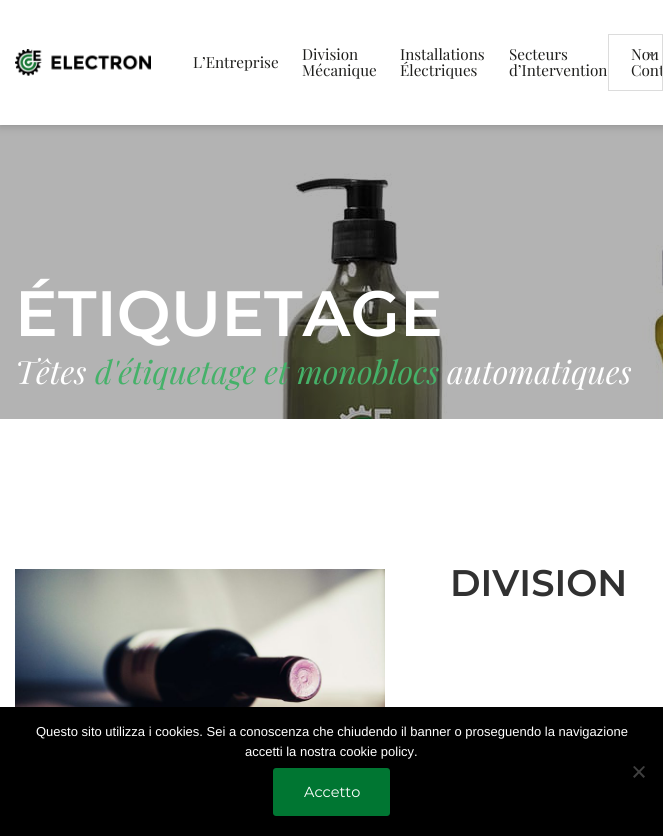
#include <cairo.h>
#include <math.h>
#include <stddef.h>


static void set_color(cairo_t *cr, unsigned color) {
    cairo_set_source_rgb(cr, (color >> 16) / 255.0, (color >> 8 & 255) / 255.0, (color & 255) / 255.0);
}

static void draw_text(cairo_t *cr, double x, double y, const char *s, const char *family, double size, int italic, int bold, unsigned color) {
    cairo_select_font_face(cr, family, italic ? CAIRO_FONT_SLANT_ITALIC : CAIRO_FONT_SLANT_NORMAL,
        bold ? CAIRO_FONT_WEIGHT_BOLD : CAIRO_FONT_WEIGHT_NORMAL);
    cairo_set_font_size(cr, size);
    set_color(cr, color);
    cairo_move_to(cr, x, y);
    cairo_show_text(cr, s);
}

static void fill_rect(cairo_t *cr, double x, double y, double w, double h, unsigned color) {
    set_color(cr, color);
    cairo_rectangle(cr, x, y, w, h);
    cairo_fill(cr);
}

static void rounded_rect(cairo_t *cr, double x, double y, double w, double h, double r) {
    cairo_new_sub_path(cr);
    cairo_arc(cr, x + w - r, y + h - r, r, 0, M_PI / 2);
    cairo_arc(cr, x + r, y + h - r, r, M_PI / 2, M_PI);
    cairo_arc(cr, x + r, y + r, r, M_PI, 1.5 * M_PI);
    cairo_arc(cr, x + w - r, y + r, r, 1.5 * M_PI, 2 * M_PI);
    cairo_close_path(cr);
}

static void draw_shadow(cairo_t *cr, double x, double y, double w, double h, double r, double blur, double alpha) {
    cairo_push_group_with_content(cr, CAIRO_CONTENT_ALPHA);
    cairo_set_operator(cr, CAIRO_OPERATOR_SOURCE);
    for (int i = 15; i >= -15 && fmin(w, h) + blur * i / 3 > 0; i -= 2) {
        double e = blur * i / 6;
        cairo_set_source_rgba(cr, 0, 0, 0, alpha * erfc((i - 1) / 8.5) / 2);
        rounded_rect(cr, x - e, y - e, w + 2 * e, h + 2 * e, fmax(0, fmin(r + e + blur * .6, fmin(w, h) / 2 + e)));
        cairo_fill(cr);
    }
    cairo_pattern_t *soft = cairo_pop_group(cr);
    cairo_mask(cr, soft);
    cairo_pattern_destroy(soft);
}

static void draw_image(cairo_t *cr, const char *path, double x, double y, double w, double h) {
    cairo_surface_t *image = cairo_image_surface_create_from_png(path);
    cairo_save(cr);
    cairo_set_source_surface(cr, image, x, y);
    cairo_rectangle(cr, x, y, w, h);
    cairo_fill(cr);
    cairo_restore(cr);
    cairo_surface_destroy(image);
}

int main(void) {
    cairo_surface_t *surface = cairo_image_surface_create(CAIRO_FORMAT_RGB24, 663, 836);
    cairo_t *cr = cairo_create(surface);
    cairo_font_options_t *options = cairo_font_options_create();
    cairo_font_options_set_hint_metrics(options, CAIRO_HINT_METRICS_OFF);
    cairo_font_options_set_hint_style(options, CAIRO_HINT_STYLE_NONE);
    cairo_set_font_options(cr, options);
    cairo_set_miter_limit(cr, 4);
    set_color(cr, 0xFFFFFF);
    cairo_paint(cr);
    draw_image(cr, "assets/img3.png", 0, 125, 663, 294);
    set_color(cr, 0x000000);
    draw_shadow(cr, 0, 0, 663, 125, 0, 5, 0.25);
    fill_rect(cr, 0, 0, 663, 125, 0xFFFFFF);
    draw_text(cr, 631, 76, "Cont", "Playfair Display", 15.25, 0, 0, 0x1D1D1B);
    cairo_rectangle(cr, 608.5, 34.5, 54, 56);
    set_color(cr, 0xDCDCDC);
    cairo_set_line_width(cr, 1);
    cairo_stroke(cr);
    draw_text(cr, 631, 60, "Nou", "Playfair Display", 15.25, 0, 0, 0x1D1D1B);
    draw_image(cr, "assets/img1.png", 647, 52, 10, 6);
    draw_image(cr, "assets/img2.png", 15, 49, 136, 27);
    draw_text(cr, 193, 68, "L’Entreprise", "Playfair Display", 15.25, 0, 0, 0x1D1D1B);
    draw_text(cr, 302, 60, "Division", "Playfair Display", 15.25, 0, 0, 0x1D1D1B);
    draw_text(cr, 302, 76, "Mécanique", "Playfair Display", 15.25, 0, 0, 0x1D1D1B);
    draw_text(cr, 400, 60, "Installations", "Playfair Display", 15.25, 0, 0, 0x1D1D1B);
    draw_text(cr, 400, 76, "Électriques", "Playfair Display", 15.25, 0, 0, 0x1D1D1B);
    draw_text(cr, 509, 60, "Secteurs", "Playfair Display", 15.25, 0, 0, 0x1D1D1B);
    draw_text(cr, 509, 76, "d’Intervention", "Playfair Display", 15.25, 0, 0, 0x1D1D1B);
    draw_text(cr, 15, 336, "ÉTIQUETAGE", "Montserrat SemiBold", 64, 0, 0, 0xFFFFFF);
    draw_text(cr, 15, 384, "Têtes", "Playfair Display", 32, 1, 0, 0xFFFFFF);
    draw_text(cr, 95, 384, "d'étiquetage et monoblocs", "Playfair Display", 32, 1, 0, 0x45B169);
    draw_text(cr, 447, 384, "automatiques", "Playfair Display", 32, 1, 0, 0xFFFFFF);
    draw_image(cr, "assets/img4.png", 15, 569, 370, 138);
    draw_text(cr, 450, 596, "DIVISION", "Montserrat SemiBold", 37, 0, 0, 0x313131);
    fill_rect(cr, 0, 707, 663, 129, 0x000000);
    draw_text(cr, 36, 736, "Questo sito utilizza i cookies. Sei a conoscenza che chiudendo il banner o proseguendo la navigazione", "Liberation Sans", 13, 0, 0, 0xFFFFFF);
    draw_text(cr, 245, 756, "accetti la nostra cookie policy.", "Liberation Sans", 13, 0, 0, 0xFFFFFF);
    set_color(cr, 0x404040);
    cairo_new_path(cr);
    cairo_move_to(cr, 643.5, 766);
    cairo_line_to(cr, 645, 767);
    cairo_line_to(cr, 634.5, 778);
    cairo_line_to(cr, 633, 776.5);
    cairo_close_path(cr);
    cairo_fill(cr);
    cairo_new_path(cr);
    cairo_move_to(cr, 633, 767);
    cairo_line_to(cr, 634.5, 766);
    cairo_line_to(cr, 645, 776.5);
    cairo_line_to(cr, 643.5, 778);
    cairo_close_path(cr);
    cairo_fill(cr);
    set_color(cr, 0x007632);
    rounded_rect(cr, 273, 768, 117, 48, 3);
    cairo_fill(cr);
    draw_text(cr, 304, 797, "Accetto", "Montserrat", 14.5, 0, 0, 0xFFFFFF);
    cairo_surface_write_to_png(surface, "output.png");
    cairo_font_options_destroy(options);
    cairo_destroy(cr);
    cairo_surface_destroy(surface);
    return 0;
}
